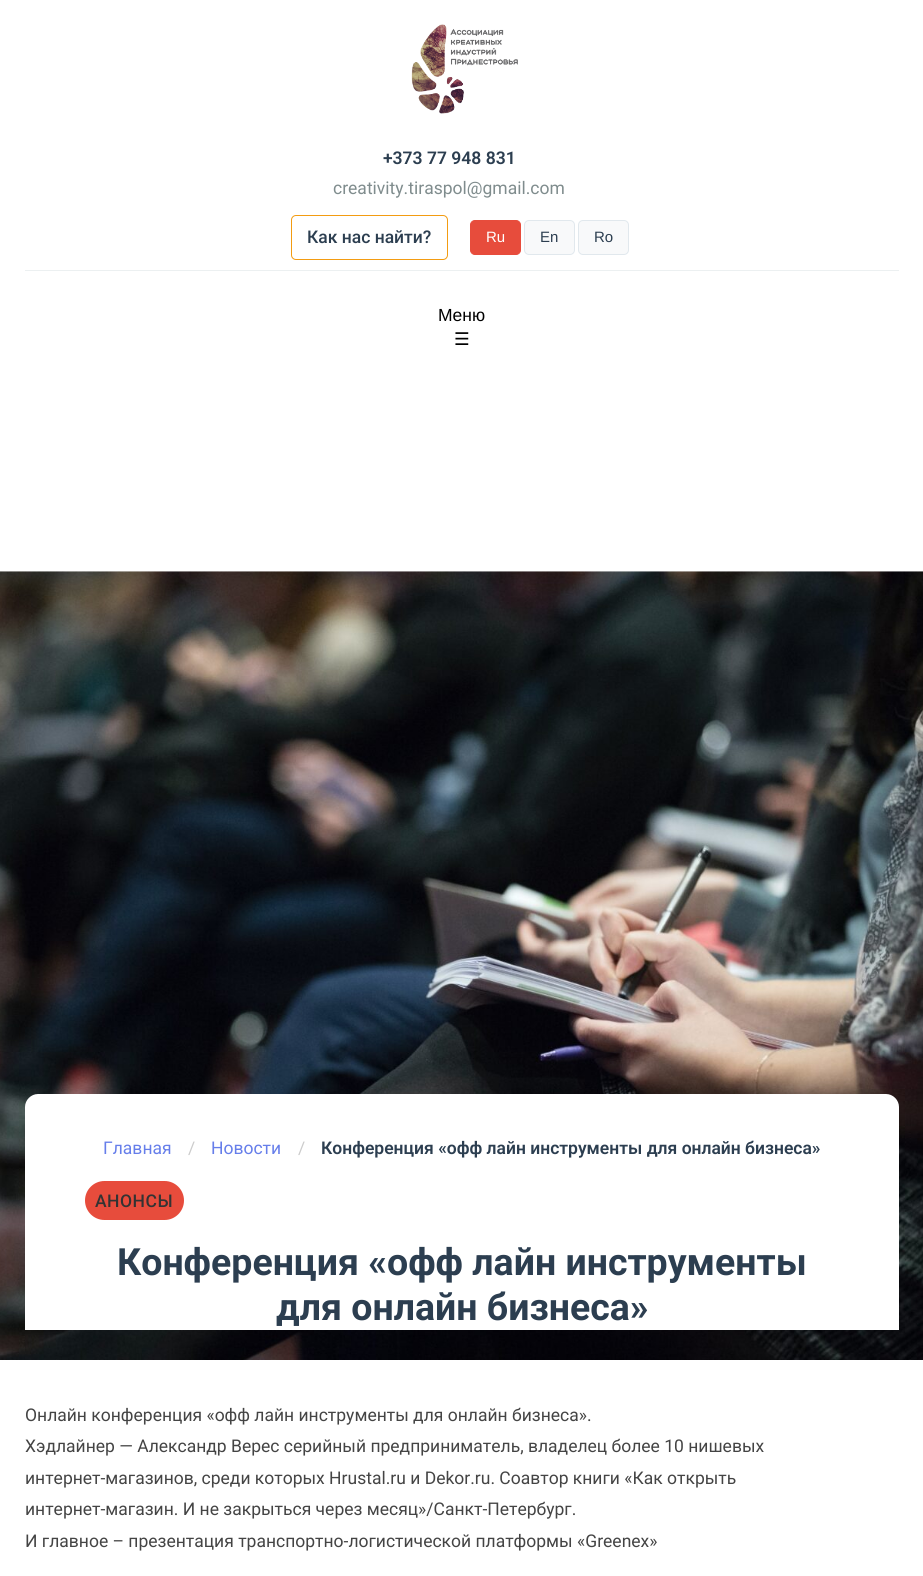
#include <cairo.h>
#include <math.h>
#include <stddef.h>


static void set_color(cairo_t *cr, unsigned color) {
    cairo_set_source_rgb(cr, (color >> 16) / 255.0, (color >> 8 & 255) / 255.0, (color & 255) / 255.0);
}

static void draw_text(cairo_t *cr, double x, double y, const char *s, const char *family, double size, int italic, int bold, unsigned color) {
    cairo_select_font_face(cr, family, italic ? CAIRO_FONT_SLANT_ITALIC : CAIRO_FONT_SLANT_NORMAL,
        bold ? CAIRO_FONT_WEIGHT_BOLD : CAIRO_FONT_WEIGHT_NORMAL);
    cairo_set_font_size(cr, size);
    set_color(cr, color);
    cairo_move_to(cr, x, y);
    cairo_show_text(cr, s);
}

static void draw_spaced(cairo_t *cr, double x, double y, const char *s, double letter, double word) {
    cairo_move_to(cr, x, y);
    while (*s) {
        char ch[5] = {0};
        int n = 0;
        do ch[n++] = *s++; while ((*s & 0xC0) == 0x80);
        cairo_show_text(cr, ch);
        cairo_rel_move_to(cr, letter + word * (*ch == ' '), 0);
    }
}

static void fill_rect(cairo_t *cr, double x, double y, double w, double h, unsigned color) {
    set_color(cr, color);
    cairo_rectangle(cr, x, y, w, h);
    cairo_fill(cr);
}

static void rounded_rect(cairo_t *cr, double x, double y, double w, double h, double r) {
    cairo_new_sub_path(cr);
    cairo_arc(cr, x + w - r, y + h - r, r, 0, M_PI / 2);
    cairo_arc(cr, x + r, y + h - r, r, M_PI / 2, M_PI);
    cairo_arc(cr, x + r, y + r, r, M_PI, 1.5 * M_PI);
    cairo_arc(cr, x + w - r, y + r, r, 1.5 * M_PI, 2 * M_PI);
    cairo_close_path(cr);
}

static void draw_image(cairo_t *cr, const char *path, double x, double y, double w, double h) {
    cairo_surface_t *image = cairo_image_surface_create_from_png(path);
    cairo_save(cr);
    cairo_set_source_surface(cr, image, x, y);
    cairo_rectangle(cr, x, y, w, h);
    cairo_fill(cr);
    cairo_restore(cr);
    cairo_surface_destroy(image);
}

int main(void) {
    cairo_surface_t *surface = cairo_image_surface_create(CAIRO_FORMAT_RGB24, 923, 1576);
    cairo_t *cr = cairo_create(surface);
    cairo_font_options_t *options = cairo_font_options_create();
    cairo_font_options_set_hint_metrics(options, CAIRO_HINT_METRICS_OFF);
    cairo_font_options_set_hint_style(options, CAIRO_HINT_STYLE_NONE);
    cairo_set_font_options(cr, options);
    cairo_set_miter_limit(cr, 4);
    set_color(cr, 0xFFFFFF);
    cairo_paint(cr);
    draw_image(cr, "assets/img1.png", 411, 24, 107, 90);
    fill_rect(cr, 25, 270, 874, 1, 0xECF0F1);
    draw_text(cr, 383, 164, "+373 77 948 831", "Roboto SemiBold", 17.5, 0, 0, 0x2C3E50);
    draw_text(cr, 333, 194, "creativity.tiraspol@gmail.com", "Roboto", 17.5, 0, 0, 0x7F8C8D);
    rounded_rect(cr, 291.5, 215.5, 156, 44, 4.5);
    set_color(cr, 0xF39C12);
    cairo_set_line_width(cr, 1);
    cairo_stroke(cr);
    draw_text(cr, 307, 243, "Как нас найти?", "Roboto Medium", 17.5, 0, 0, 0x2C3E50);
    set_color(cr, 0xE74C3C);
    rounded_rect(cr, 470.5, 220.5, 50, 34, 4.5);
    cairo_fill_preserve(cr);
    cairo_stroke(cr);
    draw_text(cr, 486, 242, "Ru", "Liberation Sans", 15, 0, 0, 0xFFFFFF);
    set_color(cr, 0xF8F9FA);
    rounded_rect(cr, 524.5, 220.5, 50, 34, 4.5);
    cairo_fill_preserve(cr);
    set_color(cr, 0xE1E8ED);
    cairo_stroke(cr);
    draw_text(cr, 540, 242, "En", "Liberation Sans", 15, 0, 0, 0x2C3E50);
    set_color(cr, 0xF8F9FA);
    rounded_rect(cr, 578.5, 220.5, 50, 34, 4.5);
    cairo_fill_preserve(cr);
    set_color(cr, 0xE1E8ED);
    cairo_stroke(cr);
    draw_text(cr, 594, 242, "Ro", "Liberation Sans", 15, 0, 0, 0x2C3E50);
    draw_text(cr, 438, 321, "Меню", "Liberation Sans", 17.5, 0, 0, 0x000000);
    draw_text(cr, 454, 345, "☰", "DejaVu Sans", 17.5, 0, 0, 0x000000);
    draw_image(cr, "assets/img2.png", 0, 571, 923, 789);
    set_color(cr, 0xFFFFFF);
    cairo_new_path(cr);
    cairo_move_to(cr, 38, 1094);
    cairo_line_to(cr, 886, 1094);
    cairo_curve_to(cr, 893, 1094, 899, 1100, 899, 1107);
    cairo_line_to(cr, 899, 1330);
    cairo_line_to(cr, 25, 1330);
    cairo_line_to(cr, 25, 1107);
    cairo_curve_to(cr, 25, 1100, 31, 1094, 38, 1094);
    cairo_close_path(cr);
    cairo_fill(cr);
    draw_text(cr, 103, 1154, "Главная", "Roboto", 17.5, 0, 0, 0x667EEA);
    draw_text(cr, 188, 1154, "/", "Roboto", 17.5, 0, 0, 0xCCCCCC);
    draw_text(cr, 211, 1154, "Новости", "Roboto", 17.5, 0, 0, 0x667EEA);
    draw_text(cr, 298, 1154, "/", "Roboto", 17.5, 0, 0, 0xCCCCCC);
    draw_text(cr, 321, 1154, "Конференция «офф лайн инструменты для онлайн бизнеса»", "Roboto SemiBold", 17.5, 0, 0, 0x2C3E50);
    set_color(cr, 0xE74C3C);
    rounded_rect(cr, 85, 1181, 99, 39, 19.5);
    cairo_fill(cr);
    cairo_select_font_face(cr, "Roboto Medium", CAIRO_FONT_SLANT_NORMAL, CAIRO_FONT_WEIGHT_NORMAL);
    set_color(cr, 0x333333);
    draw_spaced(cr, 95, 1207, "АНОНСЫ", 0.5, 0);
    draw_text(cr, 117, 1275, "Конференция «офф лайн инструменты", "Roboto", 37.5, 0, 1, 0x2C3E50);
    draw_text(cr, 276, 1320, "для онлайн бизнеса»", "Roboto", 37.5, 0, 1, 0x2C3E50);
    draw_text(cr, 25, 1421, "Онлайн конференция «офф лайн инструменты для онлайн бизнеса».", "Roboto", 17.5, 0, 0, 0x444444);
    draw_text(cr, 25, 1452, "Хэдлайнер — Александр Верес серийный предприниматель, владелец более 10 нишевых", "Roboto", 17.5, 0, 0, 0x444444);
    draw_text(cr, 25, 1484, "интернет-магазинов, среди которых Hrustal.ru и Dekor.ru. Соавтор книги «Как открыть", "Roboto", 17.5, 0, 0, 0x444444);
    draw_text(cr, 25, 1515, "интернет-магазин. И не закрыться через месяц»/Санкт-Петербург.", "Roboto", 17.5, 0, 0, 0x444444);
    draw_text(cr, 25, 1547, "И главное – презентация транспортно-логистической платформы «Greenex»", "Roboto", 17.5, 0, 0, 0x444444);
    cairo_surface_write_to_png(surface, "output.png");
    cairo_font_options_destroy(options);
    cairo_destroy(cr);
    cairo_surface_destroy(surface);
    return 0;
}
